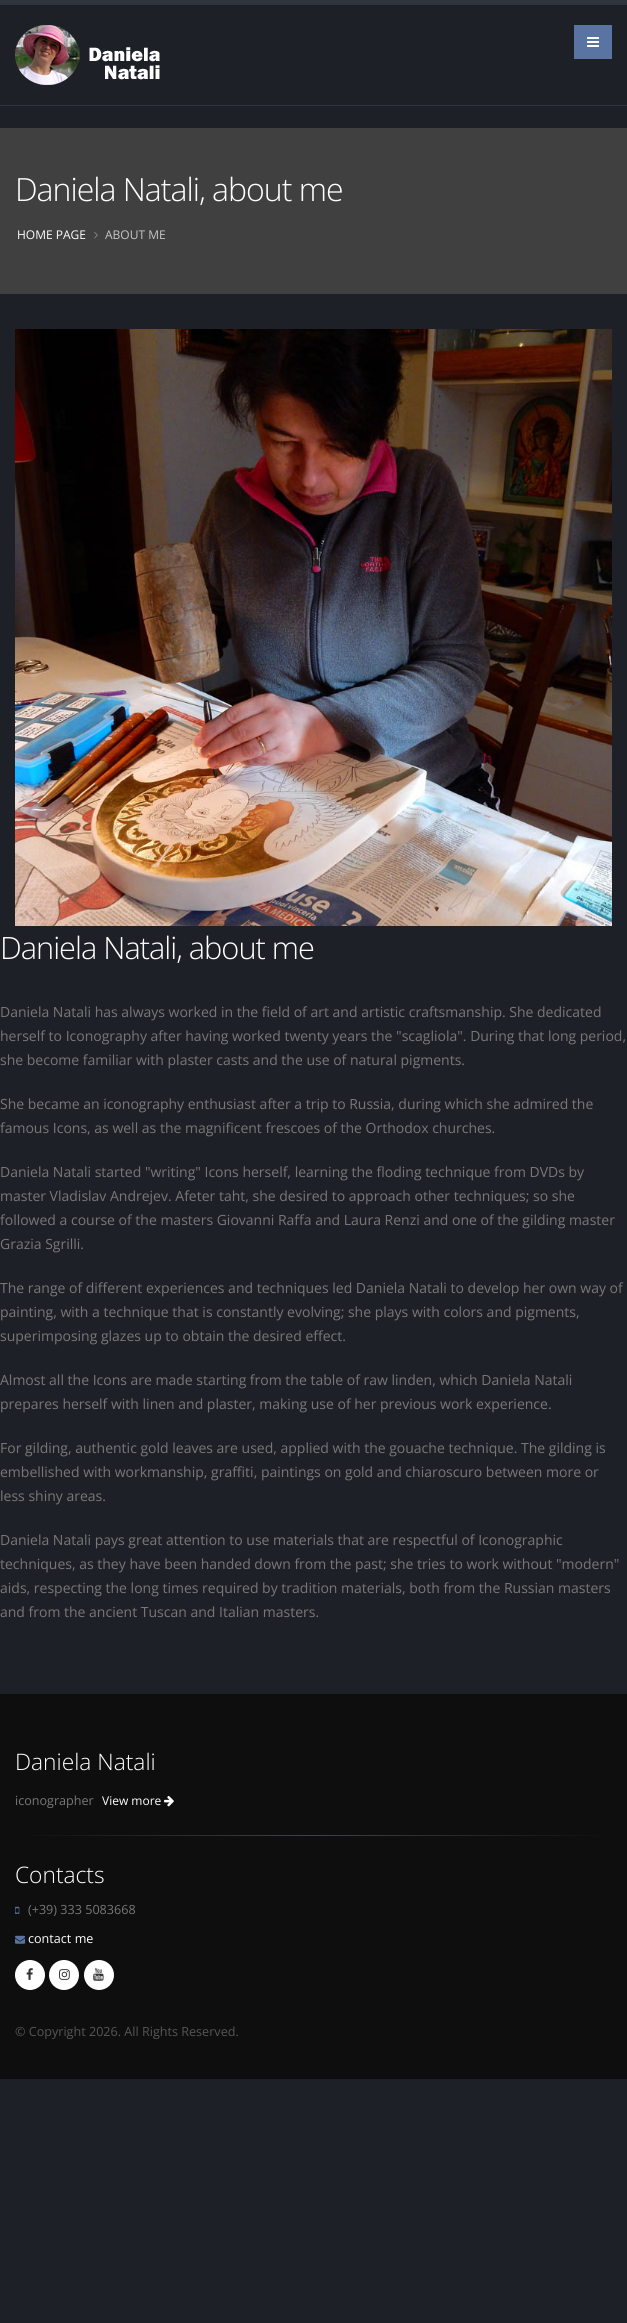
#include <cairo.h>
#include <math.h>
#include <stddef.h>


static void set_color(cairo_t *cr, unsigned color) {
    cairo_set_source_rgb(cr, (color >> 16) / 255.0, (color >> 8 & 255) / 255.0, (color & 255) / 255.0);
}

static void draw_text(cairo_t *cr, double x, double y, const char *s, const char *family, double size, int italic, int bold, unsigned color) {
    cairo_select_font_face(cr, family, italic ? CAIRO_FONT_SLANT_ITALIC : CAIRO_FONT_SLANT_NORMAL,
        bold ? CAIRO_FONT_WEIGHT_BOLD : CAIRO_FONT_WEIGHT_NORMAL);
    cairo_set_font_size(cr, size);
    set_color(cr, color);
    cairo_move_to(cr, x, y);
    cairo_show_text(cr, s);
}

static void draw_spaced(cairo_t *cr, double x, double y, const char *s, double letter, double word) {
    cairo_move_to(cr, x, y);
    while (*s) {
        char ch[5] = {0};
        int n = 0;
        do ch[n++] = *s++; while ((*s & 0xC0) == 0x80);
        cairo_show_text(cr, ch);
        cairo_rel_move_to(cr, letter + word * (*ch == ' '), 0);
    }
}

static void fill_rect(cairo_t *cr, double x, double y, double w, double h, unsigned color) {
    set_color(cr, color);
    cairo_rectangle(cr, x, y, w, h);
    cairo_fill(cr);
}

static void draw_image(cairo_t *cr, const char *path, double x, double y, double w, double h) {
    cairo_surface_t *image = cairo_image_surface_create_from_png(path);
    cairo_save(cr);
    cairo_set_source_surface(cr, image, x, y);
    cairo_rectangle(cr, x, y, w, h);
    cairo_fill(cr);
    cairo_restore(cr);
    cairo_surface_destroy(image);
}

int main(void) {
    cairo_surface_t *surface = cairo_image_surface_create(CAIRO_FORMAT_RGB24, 627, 2323);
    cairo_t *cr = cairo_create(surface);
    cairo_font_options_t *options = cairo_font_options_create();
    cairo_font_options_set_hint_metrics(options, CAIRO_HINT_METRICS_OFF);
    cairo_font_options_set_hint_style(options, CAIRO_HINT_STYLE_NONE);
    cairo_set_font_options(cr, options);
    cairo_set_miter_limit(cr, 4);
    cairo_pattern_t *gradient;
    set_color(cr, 0x1D2127);
    cairo_paint(cr);
    fill_rect(cr, 0, 0, 627, 5, 0x2E353E);
    fill_rect(cr, 0, 105, 627, 1, 0x2E353E);
    draw_image(cr, "assets/img1.png", 15, 25, 145, 60);
    fill_rect(cr, 574, 25, 38, 34, 0x5974A3);
    draw_image(cr, "assets/img2.png", 587, 37, 12, 10);
    fill_rect(cr, 0, 128, 627, 166, 0x404040);
    cairo_select_font_face(cr, "Open Sans Light", CAIRO_FONT_SLANT_NORMAL, CAIRO_FONT_WEIGHT_NORMAL);
    cairo_set_font_size(cr, 32);
    set_color(cr, 0xFFFFFF);
    draw_spaced(cr, 15, 201, "Daniela Natali, about me", -1, 0);
    draw_text(cr, 17, 239, "HOME PAGE", "Open Sans", 12, 0, 0, 0xFFFFFF);
    draw_image(cr, "assets/img3.png", 94, 232, 4, 7);
    draw_text(cr, 105, 239, "ABOUT ME", "Open Sans", 12, 0, 0, 0xC6C6C6);
    draw_image(cr, "assets/img4.png", 15, 329, 597, 597);
    cairo_select_font_face(cr, "Open Sans Light", CAIRO_FONT_SLANT_NORMAL, CAIRO_FONT_WEIGHT_NORMAL);
    cairo_set_font_size(cr, 30.75);
    set_color(cr, 0xFFFFFF);
    draw_spaced(cr, 0, 959, "Daniela Natali, about me", -1, 0);
    draw_text(cr, 0, 1017, "Daniela Natali has always worked in the field of art and artistic craftsmanship. She dedicated", "Open Sans", 14, 0, 0, 0x777777);
    draw_text(cr, 0, 1041, "herself to Iconography after having worked twenty years the \"scagliola\". During that long period,", "Open Sans", 14, 0, 0, 0x777777);
    draw_text(cr, 0, 1065, "she become familiar with plaster casts and the use of natural pigments.", "Open Sans", 14, 0, 0, 0x777777);
    draw_text(cr, 0, 1109, "She became an iconography enthusiast after a trip to Russia, during which she admired the", "Open Sans", 14, 0, 0, 0x777777);
    draw_text(cr, 0, 1133, "famous Icons, as well as the magnificent frescoes of the Orthodox churches.", "Open Sans", 14, 0, 0, 0x777777);
    draw_text(cr, 0, 1177, "Daniela Natali started \"writing\" Icons herself, learning the floding technique from DVDs by", "Open Sans", 14, 0, 0, 0x777777);
    draw_text(cr, 0, 1201, "master Vladislav Andrejev. Afeter taht, she desired to approach other techniques; so she", "Open Sans", 14, 0, 0, 0x777777);
    draw_text(cr, 0, 1225, "followed a course of the masters Giovanni Raffa and Laura Renzi and one of the gilding master", "Open Sans", 14, 0, 0, 0x777777);
    draw_text(cr, 0, 1249, "Grazia Sgrilli.", "Open Sans", 14, 0, 0, 0x777777);
    draw_text(cr, 0, 1293, "The range of different experiences and techniques led Daniela Natali to develop her own way of", "Open Sans", 14, 0, 0, 0x777777);
    draw_text(cr, 0, 1317, "painting, with a technique that is constantly evolving; she plays with colors and pigments,", "Open Sans", 14, 0, 0, 0x777777);
    draw_text(cr, 0, 1341, "superimposing glazes up to obtain the desired effect.", "Open Sans", 14, 0, 0, 0x777777);
    draw_text(cr, 0, 1385, "Almost all the Icons are made starting from the table of raw linden, which Daniela Natali", "Open Sans", 14, 0, 0, 0x777777);
    draw_text(cr, 0, 1409, "prepares herself with linen and plaster, making use of her previous work experience.", "Open Sans", 14, 0, 0, 0x777777);
    draw_text(cr, 0, 1453, "For gilding, authentic gold leaves are used, applied with the gouache technique. The gilding is", "Open Sans", 14, 0, 0, 0x777777);
    draw_text(cr, 0, 1477, "embellished with workmanship, graffiti, paintings on gold and chiaroscuro between more or", "Open Sans", 14, 0, 0, 0x777777);
    draw_text(cr, 0, 1501, "less shiny areas.", "Open Sans", 14, 0, 0, 0x777777);
    draw_text(cr, 0, 1545, "Daniela Natali pays great attention to use materials that are respectful of Iconographic", "Open Sans", 14, 0, 0, 0x777777);
    draw_text(cr, 0, 1569, "techniques, as they have been handed down from the past; she tries to work without \"modern\"", "Open Sans", 14, 0, 0, 0x777777);
    draw_text(cr, 0, 1593, "aids, respecting the long times required by tradition materials, both from the Russian masters", "Open Sans", 14, 0, 0, 0x777777);
    draw_text(cr, 0, 1617, "and from the ancient Tuscan and Italian masters.", "Open Sans", 14, 0, 0, 0x777777);
    fill_rect(cr, 0, 1694, 627, 385, 0x0E0E0E);
    draw_text(cr, 15, 1770, "Daniela Natali", "Open Sans Light", 22.75, 0, 0, 0xFFFFFF);
    draw_text(cr, 15, 1805, "iconographer", "Open Sans", 12.6, 0, 0, 0x777777);
    draw_text(cr, 102, 1805, "View more", "Open Sans", 12, 0, 0, 0xFFFFFF);
    draw_image(cr, "assets/img5.png", 164, 1796, 10, 11);
    gradient = cairo_pattern_create_linear(15, 1836, 612, 1836);
    cairo_pattern_add_color_stop_rgba(gradient, 0, 0.055, 0.055, 0.055, 1);
    cairo_pattern_add_color_stop_rgba(gradient, 0.5, 0.247, 0.259, 0.278, 1);
    cairo_pattern_add_color_stop_rgba(gradient, 1, 0.055, 0.055, 0.055, 1);
    cairo_set_source(cr, gradient);
    cairo_pattern_destroy(gradient);
    cairo_rectangle(cr, 28, 1835, 571, 1);
    cairo_fill(cr);
    draw_text(cr, 15, 1883, "Contacts", "Open Sans Light", 22.75, 0, 0, 0xFFFFFF);
    draw_image(cr, "assets/img6.png", 15, 1906, 5, 8);
    draw_text(cr, 28, 1914, "(+39) 333 5083668", "Open Sans", 12.6, 0, 0, 0x777777);
    draw_image(cr, "assets/img7.png", 15, 1935, 11, 9);
    draw_text(cr, 28, 1943, "contact me", "Open Sans", 12.6, 0, 0, 0xFFFFFF);
    cairo_new_path(cr);
    cairo_arc(cr, 30, 1975, 15, 0, 2 * M_PI);
    cairo_fill(cr);
    draw_image(cr, "assets/img8.png", 26, 1968, 7, 12);
    cairo_arc(cr, 64, 1975, 15, 0, 2 * M_PI);
    cairo_fill(cr);
    draw_image(cr, "assets/img9.png", 59, 1969, 11, 11);
    cairo_arc(cr, 99, 1975, 15, 0, 2 * M_PI);
    cairo_fill(cr);
    draw_image(cr, "assets/img10.png", 93, 1968, 11, 13);
    draw_text(cr, 15, 2036, "© Copyright 2026. All Rights Reserved.", "Open Sans", 12.6, 0, 0, 0x555555);
    cairo_surface_write_to_png(surface, "output.png");
    cairo_font_options_destroy(options);
    cairo_destroy(cr);
    cairo_surface_destroy(surface);
    return 0;
}
